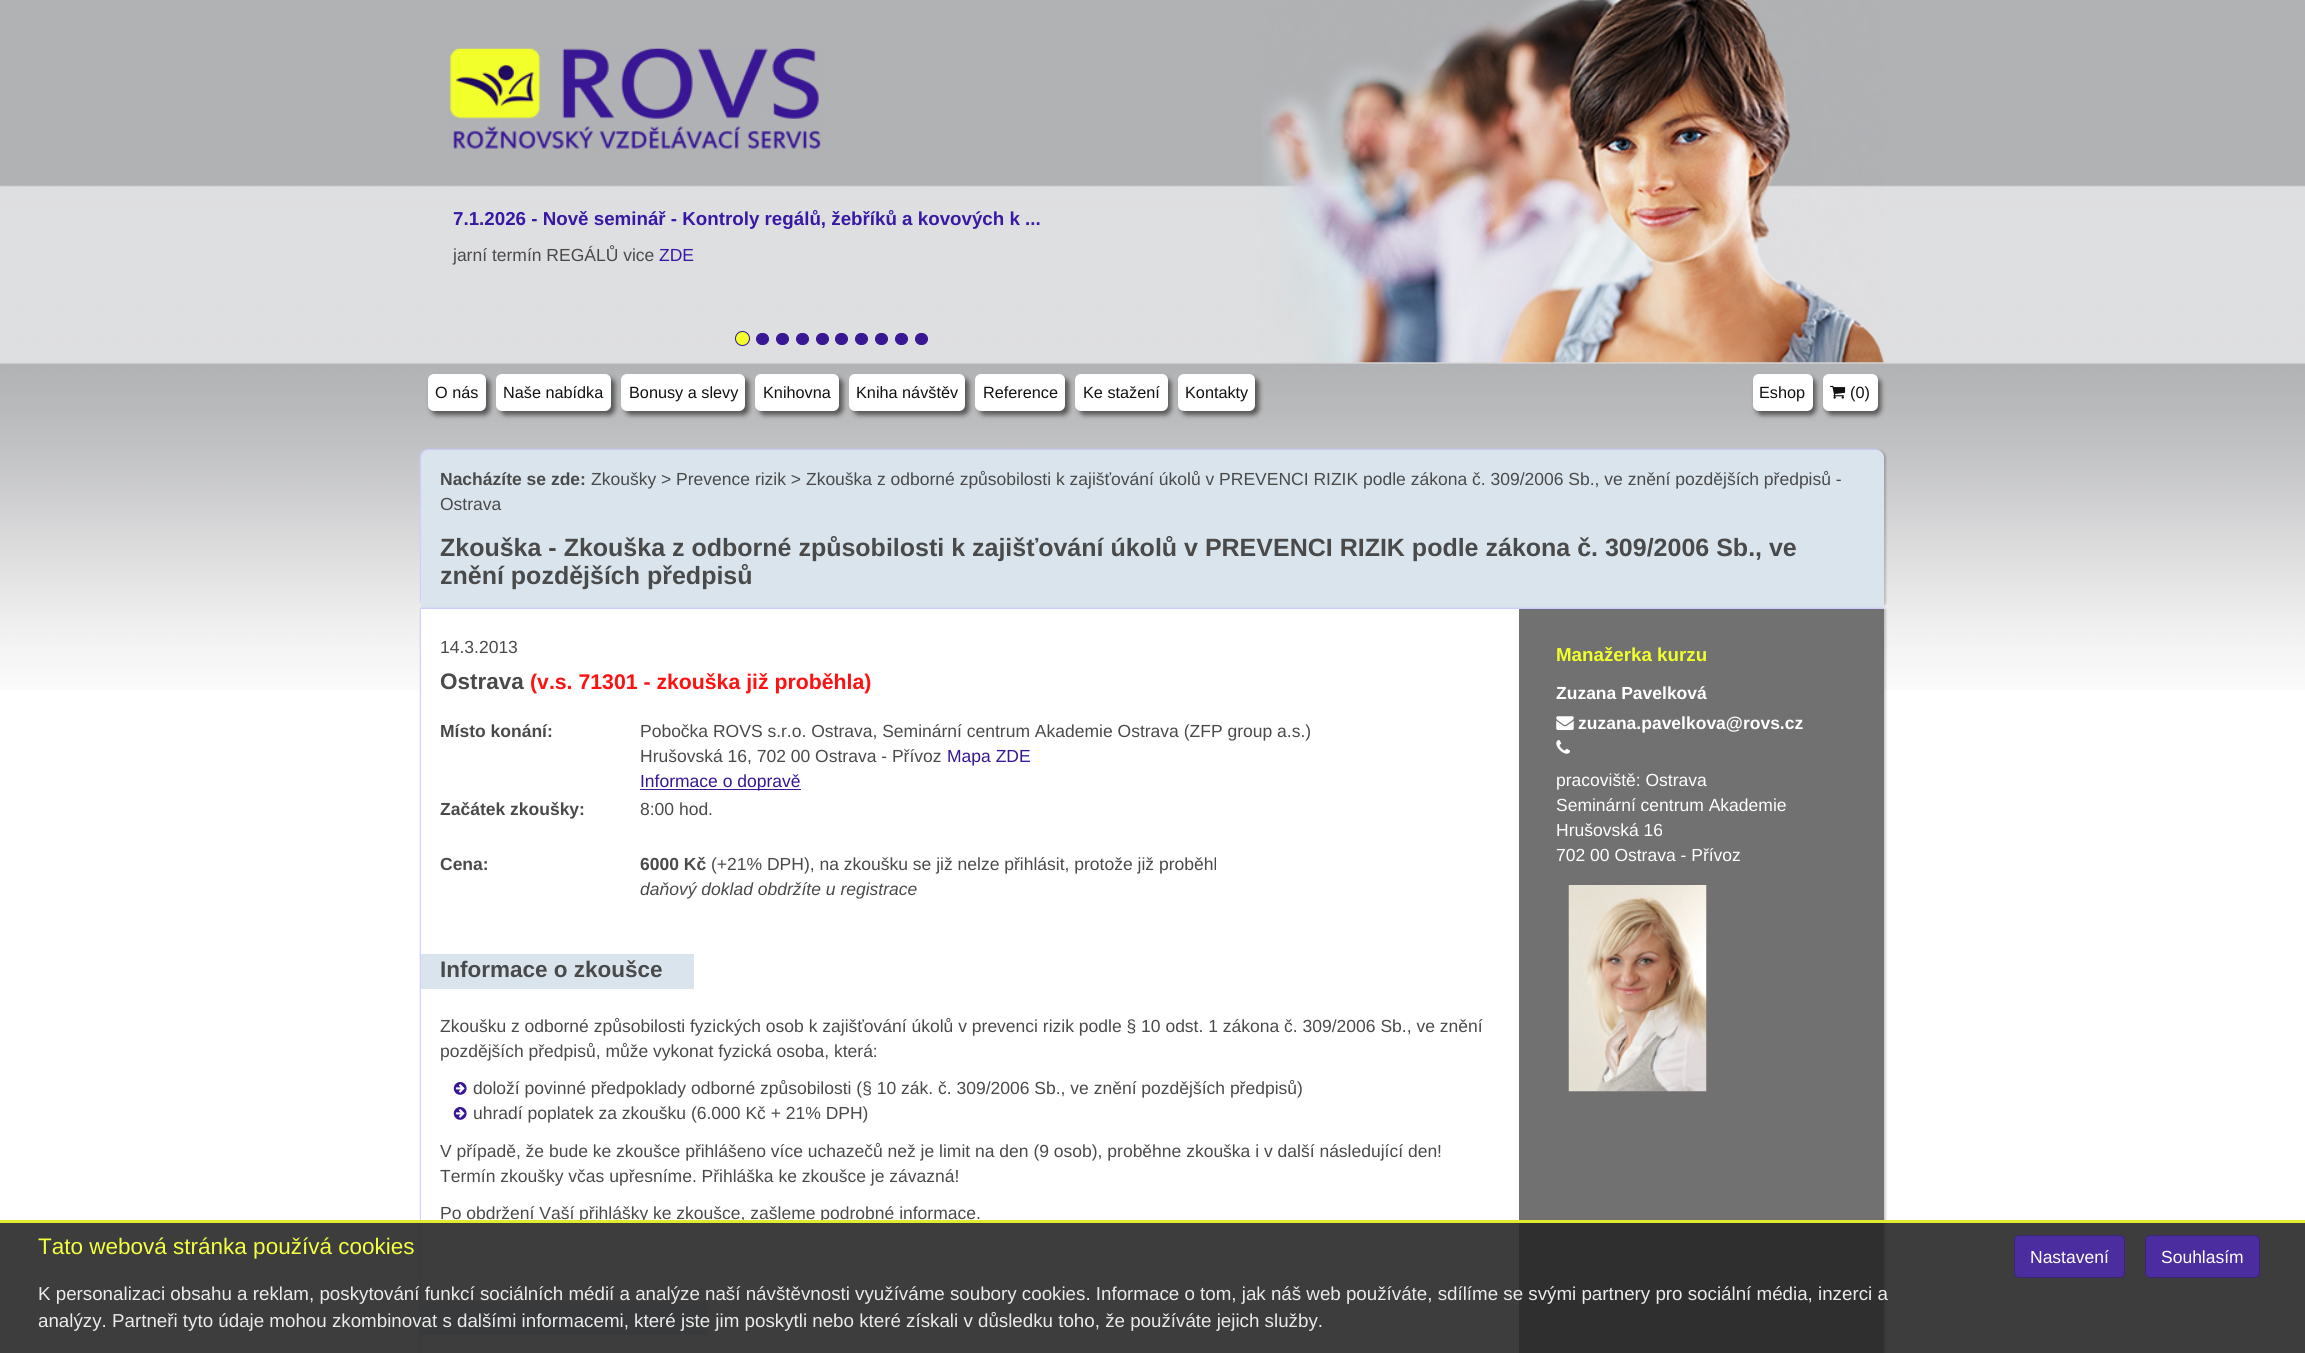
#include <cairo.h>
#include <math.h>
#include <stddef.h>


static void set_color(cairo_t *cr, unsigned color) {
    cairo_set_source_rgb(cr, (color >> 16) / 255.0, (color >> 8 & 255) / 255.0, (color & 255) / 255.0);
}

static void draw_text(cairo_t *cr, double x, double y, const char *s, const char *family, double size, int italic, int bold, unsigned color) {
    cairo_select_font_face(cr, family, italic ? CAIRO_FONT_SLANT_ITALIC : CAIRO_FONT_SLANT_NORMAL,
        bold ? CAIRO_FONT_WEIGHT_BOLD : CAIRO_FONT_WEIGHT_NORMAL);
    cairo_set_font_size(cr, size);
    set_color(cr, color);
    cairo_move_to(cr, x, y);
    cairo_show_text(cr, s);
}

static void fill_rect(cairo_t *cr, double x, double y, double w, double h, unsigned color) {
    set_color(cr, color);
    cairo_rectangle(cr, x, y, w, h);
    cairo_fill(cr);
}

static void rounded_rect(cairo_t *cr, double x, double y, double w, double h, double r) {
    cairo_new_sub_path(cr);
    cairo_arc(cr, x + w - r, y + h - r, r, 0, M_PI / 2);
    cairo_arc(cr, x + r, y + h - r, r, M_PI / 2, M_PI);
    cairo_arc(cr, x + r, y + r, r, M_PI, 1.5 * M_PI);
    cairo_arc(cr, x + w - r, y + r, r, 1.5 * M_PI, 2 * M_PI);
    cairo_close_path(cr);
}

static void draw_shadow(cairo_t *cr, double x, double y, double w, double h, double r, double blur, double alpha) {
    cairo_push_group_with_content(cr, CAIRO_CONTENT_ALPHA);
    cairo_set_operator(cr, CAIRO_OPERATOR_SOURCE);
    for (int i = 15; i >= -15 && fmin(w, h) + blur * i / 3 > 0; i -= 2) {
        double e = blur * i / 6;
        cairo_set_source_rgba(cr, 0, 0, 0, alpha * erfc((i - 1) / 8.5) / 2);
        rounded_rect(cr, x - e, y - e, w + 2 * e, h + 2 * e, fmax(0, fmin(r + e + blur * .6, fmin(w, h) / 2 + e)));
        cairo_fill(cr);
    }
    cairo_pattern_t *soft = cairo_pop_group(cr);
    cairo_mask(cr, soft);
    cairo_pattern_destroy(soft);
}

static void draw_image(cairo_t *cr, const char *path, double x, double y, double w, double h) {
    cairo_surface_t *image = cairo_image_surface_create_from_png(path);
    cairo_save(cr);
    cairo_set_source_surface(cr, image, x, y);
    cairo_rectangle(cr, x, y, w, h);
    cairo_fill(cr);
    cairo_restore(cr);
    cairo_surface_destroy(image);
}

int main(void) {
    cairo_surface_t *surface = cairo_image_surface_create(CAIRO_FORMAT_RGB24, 2305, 1353);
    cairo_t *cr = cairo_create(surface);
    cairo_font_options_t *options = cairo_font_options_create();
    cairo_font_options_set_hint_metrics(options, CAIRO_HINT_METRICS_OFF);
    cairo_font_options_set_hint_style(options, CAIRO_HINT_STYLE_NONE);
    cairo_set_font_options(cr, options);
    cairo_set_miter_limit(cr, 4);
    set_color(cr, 0xFFFFFF);
    cairo_paint(cr);
    draw_image(cr, "assets/img1.png", 0, 0, 2305, 690);
    draw_image(cr, "assets/img2.png", 1261, 0, 623, 363);
    draw_image(cr, "assets/img3.png", 449, 48, 372, 101);
    draw_text(cr, 453, 225, "7.1.2026 - Nově seminář - Kontroly regálů, žebříků a kovových k ...", "Liberation Sans", 18.75, 0, 1, 0x3818A5);
    draw_text(cr, 453, 261, "jarní termín REGÁLŮ vice", "Liberation Sans", 17.5, 0, 0, 0x4A4A4A);
    draw_text(cr, 659, 261, "ZDE", "Liberation Sans", 17.5, 0, 0, 0x3818A5);
    set_color(cr, 0xF2FF2A);
    cairo_new_path(cr);
    cairo_arc(cr, 742.5, 338.5, 7, 0, 2 * M_PI);
    cairo_fill_preserve(cr);
    set_color(cr, 0x381694);
    cairo_set_line_width(cr, 1);
    cairo_stroke(cr);
    rounded_rect(cr, 756.5, 333.5, 12, 11, 5.5);
    cairo_fill_preserve(cr);
    cairo_stroke(cr);
    rounded_rect(cr, 776.5, 333.5, 12, 11, 5.5);
    cairo_fill_preserve(cr);
    cairo_stroke(cr);
    rounded_rect(cr, 796.5, 333.5, 12, 11, 5.5);
    cairo_fill_preserve(cr);
    cairo_stroke(cr);
    rounded_rect(cr, 816.5, 333.5, 12, 11, 5.5);
    cairo_fill_preserve(cr);
    cairo_stroke(cr);
    rounded_rect(cr, 835.5, 333.5, 12, 11, 5.5);
    cairo_fill_preserve(cr);
    cairo_stroke(cr);
    rounded_rect(cr, 855.5, 333.5, 12, 11, 5.5);
    cairo_fill_preserve(cr);
    cairo_stroke(cr);
    rounded_rect(cr, 875.5, 333.5, 12, 11, 5.5);
    cairo_fill_preserve(cr);
    cairo_stroke(cr);
    rounded_rect(cr, 895.5, 333.5, 12, 11, 5.5);
    cairo_fill_preserve(cr);
    cairo_stroke(cr);
    rounded_rect(cr, 915.5, 333.5, 12, 11, 5.5);
    cairo_fill_preserve(cr);
    cairo_stroke(cr);
    cairo_set_source_rgba(cr, 0.835, 0.835, 0.843, 0.5);
    cairo_rectangle(cr, 1276, 362, 608, 1);
    cairo_fill(cr);
    set_color(cr, 0x555555);
    draw_shadow(cr, 431, 378, 59, 37, 6, 2.5, 1);
    set_color(cr, 0xFFFFFF);
    rounded_rect(cr, 428, 374, 58, 37, 6);
    cairo_fill(cr);
    draw_text(cr, 435, 398, "O nás", "Liberation Sans", 16.25, 0, 0, 0x111111);
    set_color(cr, 0x555555);
    draw_shadow(cr, 500, 378, 115, 37, 6, 2.5, 1);
    set_color(cr, 0xFFFFFF);
    rounded_rect(cr, 496, 374, 115, 37, 6);
    cairo_fill(cr);
    draw_text(cr, 503, 398, "Naše nabídka", "Liberation Sans", 16.25, 0, 0, 0x111111);
    set_color(cr, 0x555555);
    draw_shadow(cr, 625, 378, 124, 37, 6, 2.5, 1);
    set_color(cr, 0xFFFFFF);
    rounded_rect(cr, 621, 374, 124, 37, 6);
    cairo_fill(cr);
    draw_text(cr, 629, 398, "Bonusy a slevy", "Liberation Sans", 16.25, 0, 0, 0x111111);
    set_color(cr, 0x555555);
    draw_shadow(cr, 759, 378, 84, 37, 6, 2.5, 1);
    set_color(cr, 0xFFFFFF);
    rounded_rect(cr, 755, 374, 84, 37, 6);
    cairo_fill(cr);
    draw_text(cr, 763, 398, "Knihovna", "Liberation Sans", 16.25, 0, 0, 0x111111);
    set_color(cr, 0x555555);
    draw_shadow(cr, 853, 378, 116, 37, 6, 2.5, 1);
    set_color(cr, 0xFFFFFF);
    rounded_rect(cr, 849, 374, 116, 37, 6);
    cairo_fill(cr);
    draw_text(cr, 856, 398, "Kniha návštěv", "Liberation Sans", 16.25, 0, 0, 0x111111);
    set_color(cr, 0x555555);
    draw_shadow(cr, 979, 378, 90, 37, 6, 2.5, 1);
    set_color(cr, 0xFFFFFF);
    rounded_rect(cr, 975, 374, 90, 37, 6);
    cairo_fill(cr);
    draw_text(cr, 983, 398, "Reference", "Liberation Sans", 16.25, 0, 0, 0x111111);
    set_color(cr, 0x555555);
    draw_shadow(cr, 1079, 378, 92, 37, 6, 2.5, 1);
    set_color(cr, 0xFFFFFF);
    rounded_rect(cr, 1075, 374, 93, 37, 6);
    cairo_fill(cr);
    draw_text(cr, 1083, 398, "Ke stažení", "Liberation Sans", 16.25, 0, 0, 0x111111);
    set_color(cr, 0x555555);
    draw_shadow(cr, 1181, 378, 78, 37, 6, 2.5, 1);
    set_color(cr, 0xFFFFFF);
    rounded_rect(cr, 1178, 374, 77, 37, 6);
    cairo_fill(cr);
    draw_text(cr, 1185, 398, "Kontakty", "Liberation Sans", 16.25, 0, 0, 0x111111);
    set_color(cr, 0x555555);
    draw_shadow(cr, 1756, 378, 60, 37, 6, 2.5, 1);
    set_color(cr, 0xFFFFFF);
    rounded_rect(cr, 1753, 374, 60, 37, 6);
    cairo_fill(cr);
    draw_text(cr, 1759, 398, "Eshop", "Liberation Sans", 16.25, 0, 0, 0x111111);
    set_color(cr, 0x555555);
    draw_shadow(cr, 1826, 378, 55, 37, 6, 2.5, 1);
    set_color(cr, 0xFFFFFF);
    rounded_rect(cr, 1823, 374, 55, 37, 6);
    cairo_fill(cr);
    draw_image(cr, "assets/img4.png", 1830, 385, 16, 14);
    draw_text(cr, 1850, 398, "(0)", "Liberation Sans", 16.25, 0, 0, 0x111111);
    set_color(cr, 0x000000);
    draw_shadow(cr, 424, 450, 1462, 159, 8, 1, 0.2);
    set_color(cr, 0xCCCCFF);
    draw_shadow(cr, 420, 449, 1463, 159, 8, 0.5, 1);
    set_color(cr, 0xD9E4ED);
    cairo_new_path(cr);
    cairo_move_to(cr, 429, 450);
    cairo_line_to(cr, 1876, 450);
    cairo_curve_to(cr, 1880.5, 450, 1884, 453.5, 1884, 458);
    cairo_line_to(cr, 1884, 609);
    cairo_line_to(cr, 421, 609);
    cairo_line_to(cr, 421, 458);
    cairo_curve_to(cr, 421, 453.5, 424.5, 450, 429, 450);
    cairo_close_path(cr);
    cairo_fill(cr);
    draw_text(cr, 440, 485, "Nacházíte se zde:", "Liberation Sans", 17.5, 0, 1, 0x4A4A4A);
    draw_text(cr, 591, 485, "Zkoušky > Prevence rizik > Zkouška z odborné způsobilosti k zajišťování úkolů v PREVENCI RIZIK podle zákona č. 309/2006 Sb., ve znění pozdějších předpisů -", "Liberation Sans", 17.5, 0, 0, 0x4A4A4A);
    draw_text(cr, 440, 510, "Ostrava", "Liberation Sans", 17.5, 0, 0, 0x4A4A4A);
    draw_text(cr, 440, 556, "Zkouška - Zkouška z odborné způsobilosti k zajišťování úkolů v PREVENCI RIZIK podle zákona č. 309/2006 Sb., ve", "Liberation Sans", 25, 0, 1, 0x4A4A4A);
    draw_text(cr, 440, 584, "znění pozdějších předpisů", "Liberation Sans", 25, 0, 1, 0x4A4A4A);
    set_color(cr, 0x000000);
    draw_shadow(cr, 424, 609, 1462, 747, 0, 1, 0.2);
    set_color(cr, 0xCCCCFF);
    draw_shadow(cr, 420, 608, 1463, 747, 0, 0.5, 1);
    fill_rect(cr, 1519, 609, 365, 744, 0x717171);
    fill_rect(cr, 421, 609, 1098, 744, 0xFFFFFF);
    draw_text(cr, 440, 653, "14.3.2013", "Liberation Sans", 17.5, 0, 0, 0x4A4A4A);
    draw_text(cr, 440, 689, "Ostrava", "Liberation Sans", 22.5, 0, 1, 0x4A4A4A);
    draw_text(cr, 530, 689, "(v.s. 71301 - zkouška již proběhla)", "Liberation Sans", 21.25, 0, 1, 0xFF1111);
    draw_text(cr, 440, 737, "Místo konání:", "Liberation Sans", 17.5, 0, 1, 0x4A4A4A);
    draw_text(cr, 640, 737, "Pobočka ROVS s.r.o. Ostrava, Seminární centrum Akademie Ostrava (ZFP group a.s.)", "Liberation Sans", 17.5, 0, 0, 0x4A4A4A);
    draw_text(cr, 640, 762, "Hrušovská 16, 702 00 Ostrava - Přívoz", "Liberation Sans", 17.5, 0, 0, 0x4A4A4A);
    draw_text(cr, 947, 762, "Mapa ZDE", "Liberation Sans", 17.5, 0, 0, 0x381694);
    fill_rect(cr, 640, 789, 161, 1, 0x381694);
    draw_text(cr, 640, 787, "Informace o dopravě", "Liberation Sans", 17.5, 0, 0, 0x381694);
    draw_text(cr, 440, 815, "Začátek zkoušky:", "Liberation Sans", 17.5, 0, 1, 0x4A4A4A);
    draw_text(cr, 640, 815, "8:00 hod.", "Liberation Sans", 17.5, 0, 0, 0x4A4A4A);
    draw_text(cr, 440, 870, "Cena:", "Liberation Sans", 17.5, 0, 1, 0x4A4A4A);
    draw_text(cr, 640, 870, "6000 Kč", "Liberation Sans", 17.5, 0, 1, 0x4A4A4A);
    draw_text(cr, 711, 870, "(+21% DPH), na zkoušku se již nelze přihlásit, protože již proběhl", "Liberation Sans", 17.5, 0, 0, 0x4A4A4A);
    draw_text(cr, 640, 895, "daňový doklad obdržíte u registrace", "Liberation Sans", 17.5, 1, 0, 0x4A4A4A);
    fill_rect(cr, 421, 954, 273, 35, 0xD9E4ED);
    draw_text(cr, 440, 977, "Informace o zkoušce", "Liberation Sans", 22.5, 0, 1, 0x4A4A4A);
    draw_text(cr, 440, 1032, "Zkoušku z odborné způsobilosti fyzických osob k zajišťování úkolů v prevenci rizik podle § 10 odst. 1 zákona č. 309/2006 Sb., ve znění", "Liberation Sans", 17.5, 0, 0, 0x4A4A4A);
    draw_text(cr, 440, 1057, "pozdějších předpisů, může vykonat fyzická osoba, která:", "Liberation Sans", 17.5, 0, 0, 0x4A4A4A);
    draw_image(cr, "assets/img5.png", 453, 1082, 14, 13);
    draw_text(cr, 473, 1094, "doloží povinné předpoklady odborné způsobilosti (§ 10 zák. č. 309/2006 Sb., ve znění pozdějších předpisů)", "Liberation Sans", 17.5, 0, 0, 0x4A4A4A);
    draw_image(cr, "assets/img5.png", 453, 1107, 14, 13);
    draw_text(cr, 473, 1119, "uhradí poplatek za zkoušku (6.000 Kč + 21% DPH)", "Liberation Sans", 17.5, 0, 0, 0x4A4A4A);
    draw_text(cr, 440, 1157, "V případě, že bude ke zkoušce přihlášeno více uchazečů než je limit na den (9 osob), proběhne zkouška i v další následující den!", "Liberation Sans", 17.5, 0, 0, 0x4A4A4A);
    draw_text(cr, 440, 1182, "Termín zkoušky včas upřesníme. Přihláška ke zkoušce je závazná!", "Liberation Sans", 17.5, 0, 0, 0x4A4A4A);
    draw_text(cr, 440, 1219, "Po obdržení Vaší přihlášky ke zkoušce, zašleme podrobné informace.", "Liberation Sans", 17.5, 0, 0, 0x4A4A4A);
    fill_rect(cr, 421, 1301, 287, 34, 0xD9E4ED);
    draw_text(cr, 1556, 661, "Manažerka kurzu", "Liberation Sans", 18.75, 0, 1, 0xF2FF2A);
    draw_text(cr, 1556, 699, "Zuzana Pavelková", "Liberation Sans", 17.5, 0, 1, 0xFFFFFF);
    draw_image(cr, "assets/img6.png", 1556, 716, 18, 14);
    draw_text(cr, 1578, 729, "zuzana.pavelkova@rovs.cz", "Liberation Sans", 17.5, 0, 1, 0xFFFFFF);
    draw_image(cr, "assets/img7.png", 1556, 740, 14, 14);
    draw_text(cr, 1556, 786, "pracoviště: Ostrava", "Liberation Sans", 17.5, 0, 0, 0xFFFFFF);
    draw_text(cr, 1556, 811, "Seminární centrum Akademie", "Liberation Sans", 17.5, 0, 0, 0xFFFFFF);
    draw_text(cr, 1556, 836, "Hrušovská 16", "Liberation Sans", 17.5, 0, 0, 0xFFFFFF);
    draw_text(cr, 1556, 861, "702 00 Ostrava - Přívoz", "Liberation Sans", 17.5, 0, 0, 0xFFFFFF);
    draw_image(cr, "assets/img8.png", 1568, 885, 139, 207);
    cairo_set_source_rgba(cr, 0.157, 0.157, 0.157, 0.9);
    cairo_rectangle(cr, 0, 1220, 2305, 133);
    cairo_fill(cr);
    cairo_set_source_rgba(cr, 0.949, 1, 0.165, 0.9);
    cairo_rectangle(cr, 0, 1220, 2305, 3);
    cairo_fill(cr);
    draw_text(cr, 38, 1254, "Tato webová stránka používá cookies", "Liberation Sans", 22.5, 0, 0, 0xF3FF3F);
    draw_text(cr, 38, 1300, "K personalizaci obsahu a reklam, poskytování funkcí sociálních médií a analýze naší návštěvnosti využíváme soubory cookies. Informace o tom, jak náš web používáte, sdílíme se svými partnery pro sociální média, inzerci a", "Liberation Sans", 18.75, 0, 0, 0xEBEBEB);
    draw_text(cr, 38, 1327, "analýzy. Partneři tyto údaje mohou zkombinovat s dalšími informacemi, které jste jim poskytli nebo které získali v důsledku toho, že používáte jejich služby.", "Liberation Sans", 18.75, 0, 0, 0xEBEBEB);
    set_color(cr, 0x4C2D9F);
    rounded_rect(cr, 2014.5, 1235.5, 110, 42, 4.5);
    cairo_fill_preserve(cr);
    set_color(cr, 0x3A266E);
    cairo_stroke(cr);
    draw_text(cr, 2030, 1263, "Nastavení", "Liberation Sans", 17.5, 0, 0, 0xFFFFFF);
    set_color(cr, 0x4C2D9F);
    rounded_rect(cr, 2145.5, 1235.5, 114, 42, 4.5);
    cairo_fill_preserve(cr);
    set_color(cr, 0x3A266E);
    cairo_stroke(cr);
    draw_text(cr, 2161, 1263, "Souhlasím", "Liberation Sans", 17.5, 0, 0, 0xFFFFFF);
    cairo_surface_write_to_png(surface, "output.png");
    cairo_font_options_destroy(options);
    cairo_destroy(cr);
    cairo_surface_destroy(surface);
    return 0;
}
